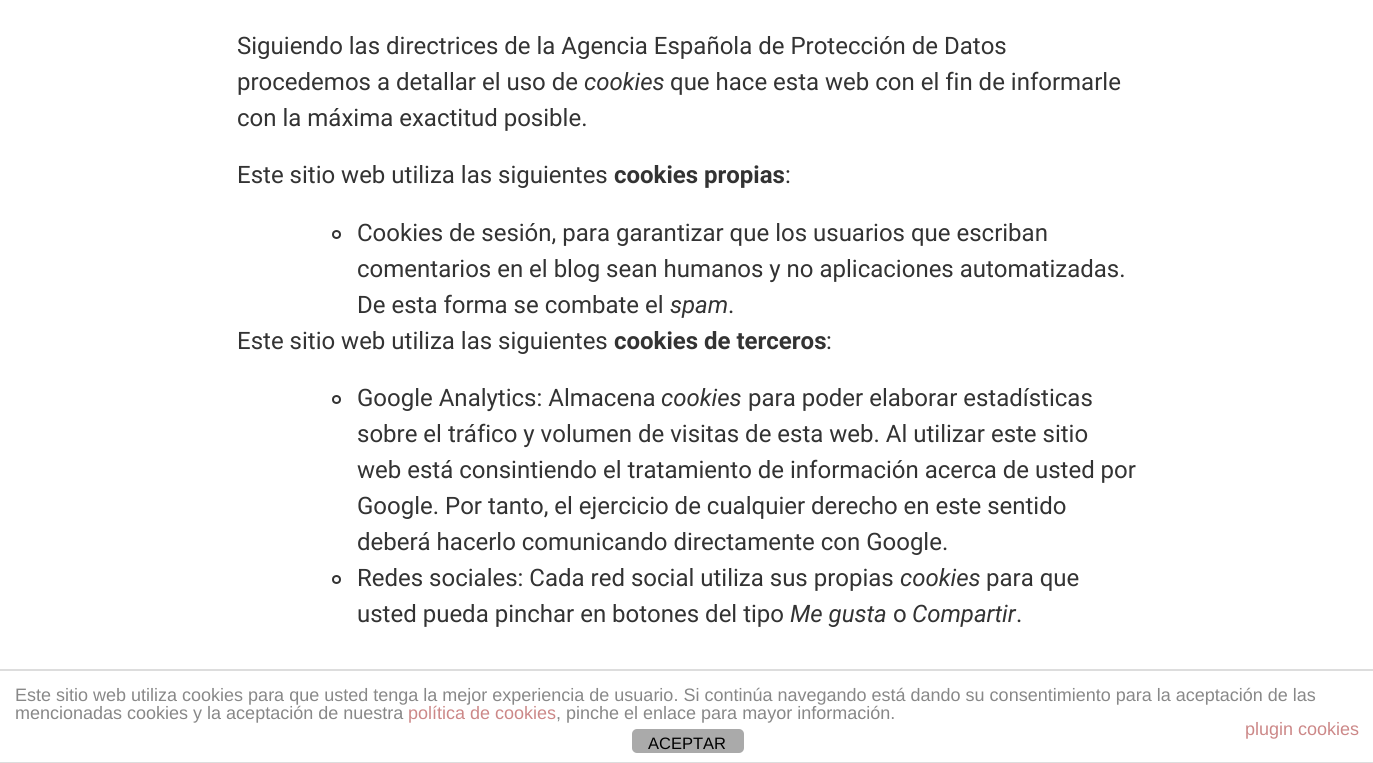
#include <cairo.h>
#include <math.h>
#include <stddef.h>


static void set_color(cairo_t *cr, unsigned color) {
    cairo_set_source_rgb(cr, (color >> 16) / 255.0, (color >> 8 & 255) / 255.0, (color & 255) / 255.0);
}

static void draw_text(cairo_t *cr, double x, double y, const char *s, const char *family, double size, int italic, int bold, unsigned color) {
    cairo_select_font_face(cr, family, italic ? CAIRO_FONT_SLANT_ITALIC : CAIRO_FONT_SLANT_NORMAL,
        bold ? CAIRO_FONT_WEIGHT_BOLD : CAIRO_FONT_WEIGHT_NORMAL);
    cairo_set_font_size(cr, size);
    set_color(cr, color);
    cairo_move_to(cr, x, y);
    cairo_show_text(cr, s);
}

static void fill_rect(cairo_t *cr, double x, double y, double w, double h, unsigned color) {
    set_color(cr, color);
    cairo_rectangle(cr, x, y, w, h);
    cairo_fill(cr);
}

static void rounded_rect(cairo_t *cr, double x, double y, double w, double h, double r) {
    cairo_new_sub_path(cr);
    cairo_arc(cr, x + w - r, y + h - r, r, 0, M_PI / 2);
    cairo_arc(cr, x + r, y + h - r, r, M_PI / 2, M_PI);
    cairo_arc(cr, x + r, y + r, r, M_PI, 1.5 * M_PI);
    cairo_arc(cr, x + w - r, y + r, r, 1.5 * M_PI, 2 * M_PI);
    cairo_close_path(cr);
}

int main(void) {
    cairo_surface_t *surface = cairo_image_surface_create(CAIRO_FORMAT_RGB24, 1373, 763);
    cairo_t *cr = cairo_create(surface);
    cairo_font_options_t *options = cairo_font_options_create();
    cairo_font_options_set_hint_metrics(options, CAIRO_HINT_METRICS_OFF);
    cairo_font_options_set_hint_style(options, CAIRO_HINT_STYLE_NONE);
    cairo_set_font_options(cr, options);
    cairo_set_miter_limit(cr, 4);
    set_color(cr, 0xFFFFFF);
    cairo_paint(cr);
    draw_text(cr, 237, 54, "Siguiendo las directrices de la Agencia Española de Protección de Datos", "Roboto", 24, 0, 0, 0x333333);
    draw_text(cr, 237, 90, "procedemos a detallar el uso de", "Roboto", 24, 0, 0, 0x333333);
    draw_text(cr, 584, 90, "cookies", "Roboto", 24, 1, 0, 0x333333);
    draw_text(cr, 670, 90, "que hace esta web con el fin de informarle", "Roboto", 24, 0, 0, 0x333333);
    draw_text(cr, 237, 126, "con la máxima exactitud posible.", "Roboto", 24, 0, 0, 0x333333);
    draw_text(cr, 237, 183, "Este sitio web utiliza las siguientes", "Roboto", 24, 0, 0, 0x333333);
    draw_text(cr, 614, 183, "cookies propias", "Roboto", 24, 0, 1, 0x333333);
    draw_text(cr, 785, 183, ":", "Roboto", 24, 0, 0, 0x333333);
    cairo_new_path(cr);
    cairo_arc(cr, 336.5, 234.5, 3.5, 0, 2 * M_PI);
    cairo_stroke(cr);
    draw_text(cr, 357, 241, "Cookies de sesión, para garantizar que los usuarios que escriban", "Roboto", 24, 0, 0, 0x333333);
    draw_text(cr, 357, 277, "comentarios en el blog sean humanos y no aplicaciones automatizadas.", "Roboto", 24, 0, 0, 0x333333);
    draw_text(cr, 357, 313, "De esta forma se combate el", "Roboto", 24, 0, 0, 0x333333);
    draw_text(cr, 670, 313, "spam", "Roboto", 24, 1, 0, 0x333333);
    draw_text(cr, 728, 313, ".", "Roboto", 24, 0, 0, 0x333333);
    draw_text(cr, 237, 349, "Este sitio web utiliza las siguientes", "Roboto", 24, 0, 0, 0x333333);
    draw_text(cr, 614, 349, "cookies de terceros", "Roboto", 24, 0, 1, 0x333333);
    draw_text(cr, 826, 349, ":", "Roboto", 24, 0, 0, 0x333333);
    cairo_new_path(cr);
    cairo_arc(cr, 336.5, 399.5, 3.5, 0, 2 * M_PI);
    cairo_stroke(cr);
    draw_text(cr, 357, 406, "Google Analytics: Almacena", "Roboto", 24, 0, 0, 0x333333);
    draw_text(cr, 661, 406, "cookies", "Roboto", 24, 1, 0, 0x333333);
    draw_text(cr, 748, 406, "para poder elaborar estadísticas", "Roboto", 24, 0, 0, 0x333333);
    draw_text(cr, 357, 442, "sobre el tráfico y volumen de visitas de esta web. Al utilizar este sitio", "Roboto", 24, 0, 0, 0x333333);
    draw_text(cr, 357, 478, "web está consintiendo el tratamiento de información acerca de usted por", "Roboto", 24, 0, 0, 0x333333);
    draw_text(cr, 357, 514, "Google. Por tanto, el ejercicio de cualquier derecho en este sentido", "Roboto", 24, 0, 0, 0x333333);
    draw_text(cr, 357, 550, "deberá hacerlo comunicando directamente con Google.", "Roboto", 24, 0, 0, 0x333333);
    cairo_new_path(cr);
    cairo_arc(cr, 336.5, 579.5, 3.5, 0, 2 * M_PI);
    cairo_stroke(cr);
    draw_text(cr, 357, 586, "Redes sociales: Cada red social utiliza sus propias", "Roboto", 24, 0, 0, 0x333333);
    draw_text(cr, 900, 586, "cookies", "Roboto", 24, 1, 0, 0x333333);
    draw_text(cr, 986, 586, "para que", "Roboto", 24, 0, 0, 0x333333);
    draw_text(cr, 357, 622, "usted pueda pinchar en botones del tipo", "Roboto", 24, 0, 0, 0x333333);
    draw_text(cr, 790, 622, "Me gusta", "Roboto", 24, 1, 0, 0x333333);
    draw_text(cr, 893, 622, "o", "Roboto", 24, 0, 0, 0x333333);
    draw_text(cr, 912, 622, "Compartir", "Roboto", 24, 1, 0, 0x333333);
    draw_text(cr, 1016, 622, ".", "Roboto", 24, 0, 0, 0x333333);
    fill_rect(cr, 0, 669, 1373, 2, 0xDDDDDD);
    fill_rect(cr, 0, 762, 1373, 1, 0xDDDDDD);
    draw_text(cr, 15, 701, "Este sitio web utiliza cookies para que usted tenga la mejor experiencia de usuario. Si continúa navegando está dando su consentimiento para la aceptación de las", "Liberation Sans", 18, 0, 0, 0x888888);
    draw_text(cr, 15, 719, "mencionadas cookies y la aceptación de nuestra", "Liberation Sans", 18, 0, 0, 0x888888);
    draw_text(cr, 408, 719, "política de cookies", "Liberation Sans", 18, 0, 0, 0xCC8888);
    draw_text(cr, 556, 719, ", pinche el enlace para mayor información.", "Liberation Sans", 18, 0, 0, 0x888888);
    draw_text(cr, 1245, 735, "plugin cookies", "Liberation Sans", 18, 0, 0, 0xCC8888);
    set_color(cr, 0xAAAAAA);
    rounded_rect(cr, 632, 729, 112, 24, 5);
    cairo_fill(cr);
    draw_text(cr, 648, 749, "ACEPTAR", "Liberation Sans", 16.5, 0, 0, 0x000000);
    cairo_surface_write_to_png(surface, "output.png");
    cairo_font_options_destroy(options);
    cairo_destroy(cr);
    cairo_surface_destroy(surface);
    return 0;
}
